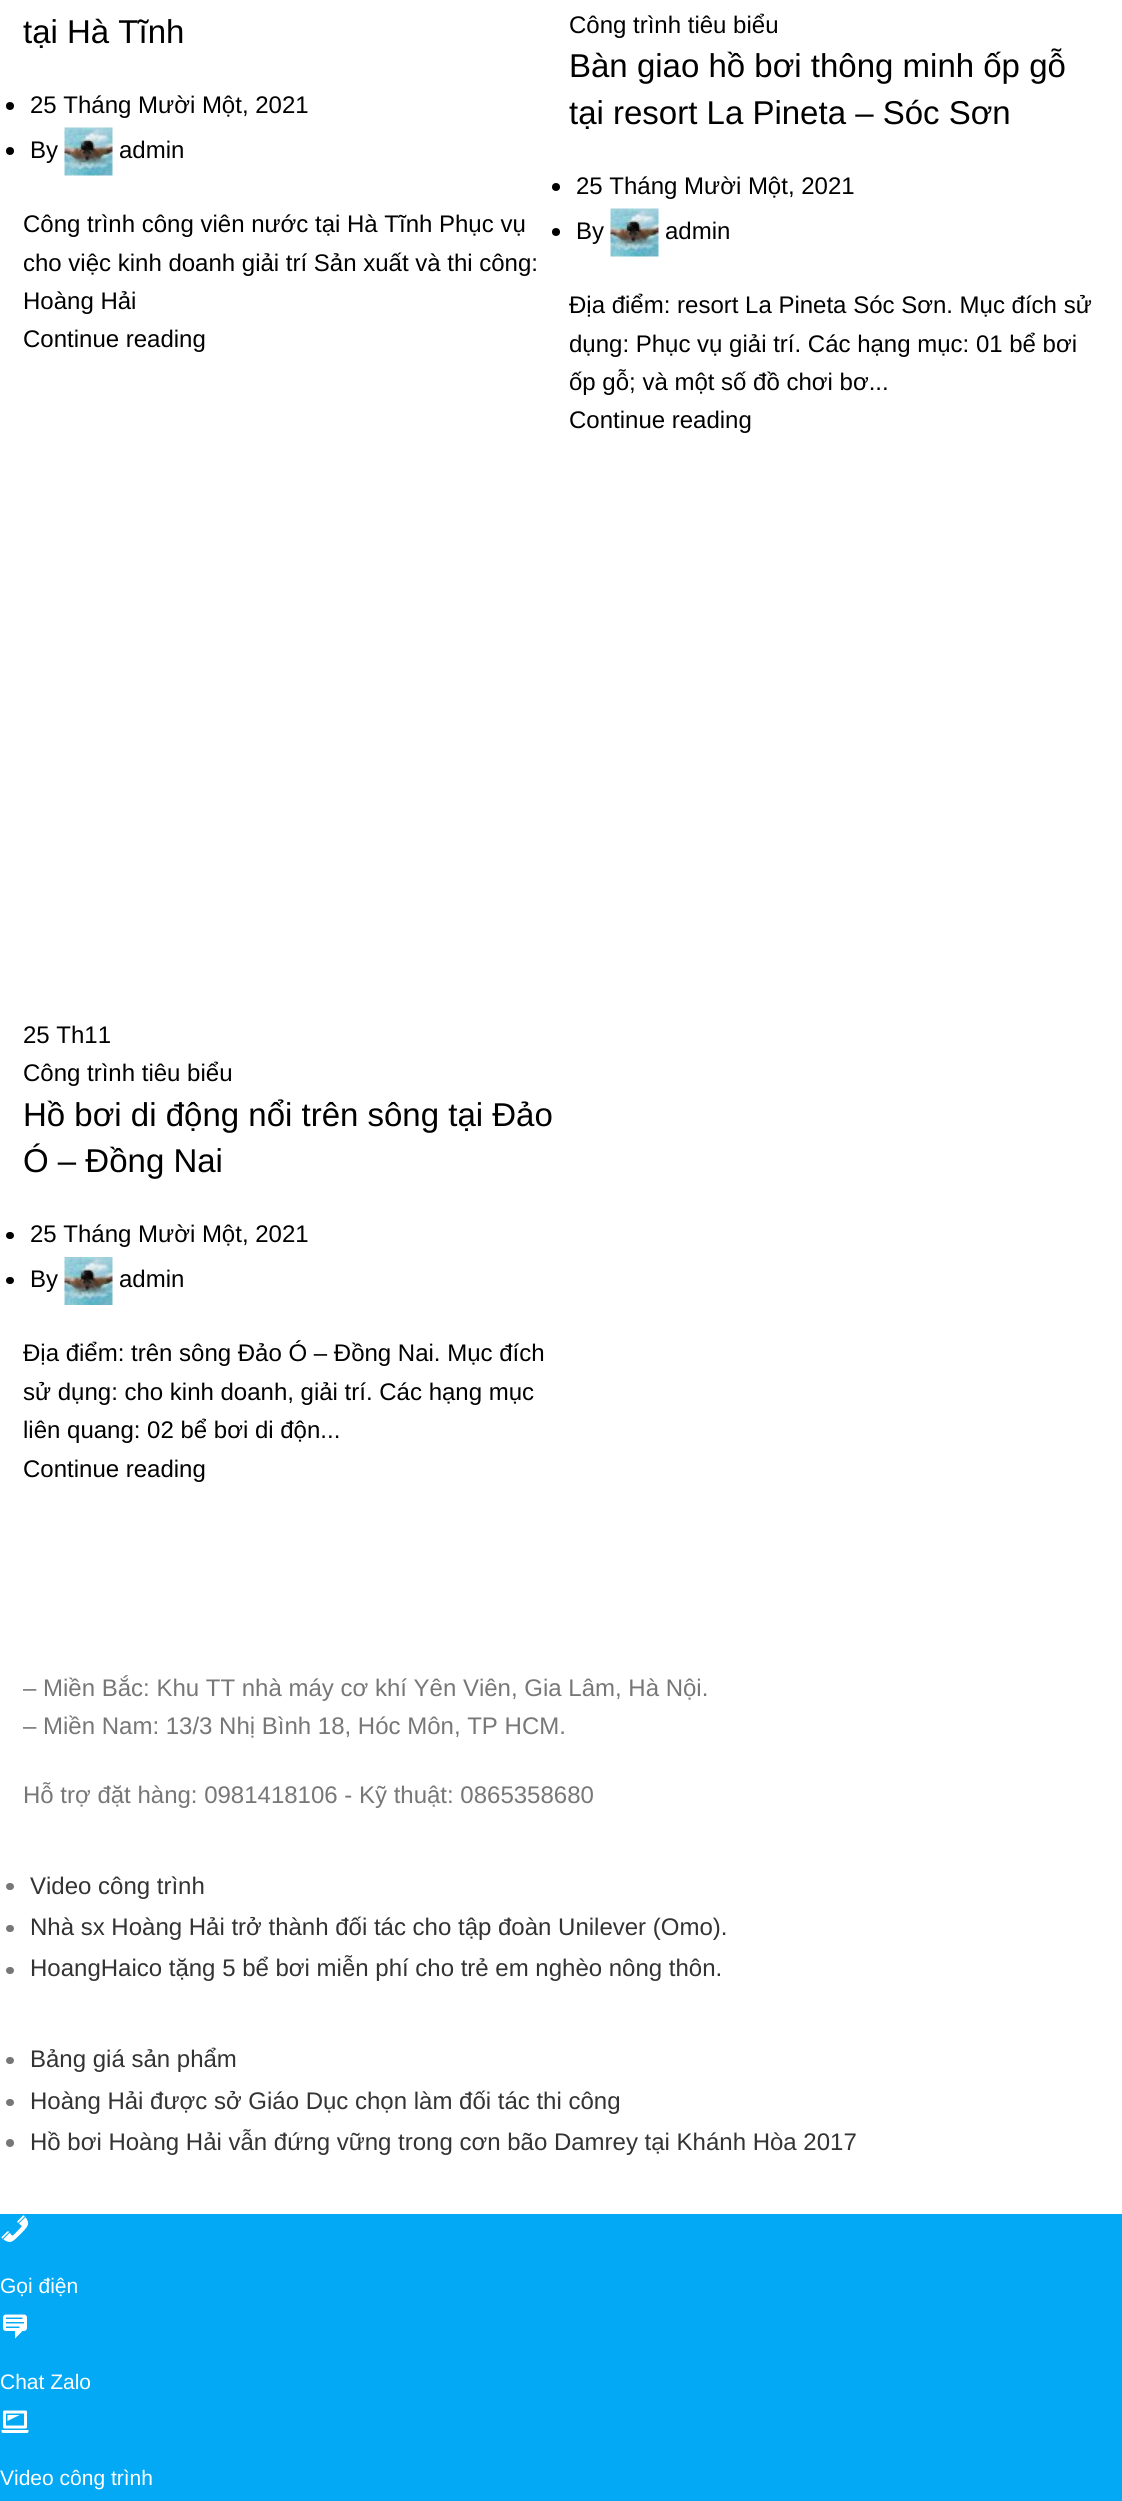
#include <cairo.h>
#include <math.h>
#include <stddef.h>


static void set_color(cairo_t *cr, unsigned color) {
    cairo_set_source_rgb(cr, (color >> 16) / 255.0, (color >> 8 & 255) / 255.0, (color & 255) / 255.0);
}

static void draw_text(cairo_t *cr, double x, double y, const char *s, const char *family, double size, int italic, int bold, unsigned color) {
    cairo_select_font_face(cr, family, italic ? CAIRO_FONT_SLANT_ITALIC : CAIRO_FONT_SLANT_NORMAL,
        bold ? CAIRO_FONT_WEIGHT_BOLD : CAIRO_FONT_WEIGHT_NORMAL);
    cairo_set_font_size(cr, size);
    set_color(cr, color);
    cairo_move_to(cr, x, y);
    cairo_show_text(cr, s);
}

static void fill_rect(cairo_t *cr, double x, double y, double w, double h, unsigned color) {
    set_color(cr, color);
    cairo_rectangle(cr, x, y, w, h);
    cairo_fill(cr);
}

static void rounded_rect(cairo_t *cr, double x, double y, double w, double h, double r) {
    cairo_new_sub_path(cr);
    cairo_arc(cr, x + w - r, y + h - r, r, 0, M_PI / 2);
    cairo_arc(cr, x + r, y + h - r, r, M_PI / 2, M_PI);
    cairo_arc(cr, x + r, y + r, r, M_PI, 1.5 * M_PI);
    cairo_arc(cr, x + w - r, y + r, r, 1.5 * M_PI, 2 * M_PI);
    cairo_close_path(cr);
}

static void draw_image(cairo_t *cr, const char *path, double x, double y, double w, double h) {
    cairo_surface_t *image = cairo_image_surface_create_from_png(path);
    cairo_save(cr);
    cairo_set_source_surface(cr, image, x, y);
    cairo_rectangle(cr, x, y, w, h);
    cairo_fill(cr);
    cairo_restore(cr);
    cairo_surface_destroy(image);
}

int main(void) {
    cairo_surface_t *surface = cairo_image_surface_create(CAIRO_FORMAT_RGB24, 1122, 2501);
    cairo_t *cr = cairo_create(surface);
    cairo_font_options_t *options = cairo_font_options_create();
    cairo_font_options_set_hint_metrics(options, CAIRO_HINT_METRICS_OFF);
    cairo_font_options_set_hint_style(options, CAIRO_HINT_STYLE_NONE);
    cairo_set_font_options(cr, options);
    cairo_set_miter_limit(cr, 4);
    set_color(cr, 0xFFFFFF);
    cairo_paint(cr);
    draw_text(cr, 23, 43, "tại Hà Tĩnh", "Liberation Sans", 33, 0, 0, 0x000000);
    cairo_new_path(cr);
    cairo_arc(cr, 10, 106, 4, 0, 2 * M_PI);
    cairo_fill(cr);
    draw_text(cr, 30, 113, "25 Tháng Mười Một, 2021", "Liberation Sans", 24, 0, 0, 0x000000);
    cairo_new_path(cr);
    cairo_arc(cr, 10, 151, 4, 0, 2 * M_PI);
    cairo_fill(cr);
    draw_text(cr, 30, 158, "By", "Liberation Sans", 24, 0, 0, 0x000000);
    draw_image(cr, "assets/img1.png", 64, 127, 49, 49);
    draw_text(cr, 119, 158, "admin", "Liberation Sans", 24, 0, 0, 0x000000);
    draw_text(cr, 23, 232, "Công trình công viên nước tại Hà Tĩnh Phục vụ", "Liberation Sans", 24, 0, 0, 0x000000);
    draw_text(cr, 23, 271, "cho việc kinh doanh giải trí Sản xuất và thi công:", "Liberation Sans", 24, 0, 0, 0x000000);
    draw_text(cr, 23, 309, "Hoàng Hải", "Liberation Sans", 24, 0, 0, 0x000000);
    draw_text(cr, 23, 347, "Continue reading", "Liberation Sans", 24, 0, 0, 0x000000);
    draw_text(cr, 569, 33, "Công trình tiêu biểu", "Liberation Sans", 24, 0, 0, 0x000000);
    draw_text(cr, 569, 77, "Bàn giao hồ bơi thông minh ốp gỗ", "Liberation Sans", 33, 0, 0, 0x000000);
    draw_text(cr, 569, 124, "tại resort La Pineta – Sóc Sơn", "Liberation Sans", 33, 0, 0, 0x000000);
    cairo_new_path(cr);
    cairo_arc(cr, 556, 187, 4, 0, 2 * M_PI);
    cairo_fill(cr);
    draw_text(cr, 576, 194, "25 Tháng Mười Một, 2021", "Liberation Sans", 24, 0, 0, 0x000000);
    cairo_new_path(cr);
    cairo_arc(cr, 556, 232, 4, 0, 2 * M_PI);
    cairo_fill(cr);
    draw_text(cr, 576, 239, "By", "Liberation Sans", 24, 0, 0, 0x000000);
    draw_image(cr, "assets/img2.png", 610, 208, 49, 49);
    draw_text(cr, 665, 239, "admin", "Liberation Sans", 24, 0, 0, 0x000000);
    draw_text(cr, 569, 313, "Địa điểm: resort La Pineta Sóc Sơn. Mục đích sử", "Liberation Sans", 24, 0, 0, 0x000000);
    draw_text(cr, 569, 352, "dụng: Phục vụ giải trí. Các hạng mục: 01 bể bơi", "Liberation Sans", 24, 0, 0, 0x000000);
    draw_text(cr, 569, 390, "ốp gỗ; và một số đồ chơi bơ...", "Liberation Sans", 24, 0, 0, 0x000000);
    draw_text(cr, 569, 428, "Continue reading", "Liberation Sans", 24, 0, 0, 0x000000);
    draw_text(cr, 23, 1043, "25 Th11", "Liberation Sans", 24, 0, 0, 0x000000);
    draw_text(cr, 23, 1081, "Công trình tiêu biểu", "Liberation Sans", 24, 0, 0, 0x000000);
    draw_text(cr, 23, 1126, "Hồ bơi di động nổi trên sông tại Đảo", "Liberation Sans", 33, 0, 0, 0x000000);
    draw_text(cr, 23, 1172, "Ó – Đồng Nai", "Liberation Sans", 33, 0, 0, 0x000000);
    rounded_rect(cr, 6, 1232, 8, 7, 3.5);
    cairo_fill(cr);
    draw_text(cr, 30, 1242, "25 Tháng Mười Một, 2021", "Liberation Sans", 24, 0, 0, 0x000000);
    rounded_rect(cr, 6, 1277, 8, 7, 3.5);
    cairo_fill(cr);
    draw_text(cr, 30, 1287, "By", "Liberation Sans", 24, 0, 0, 0x000000);
    draw_image(cr, "assets/img3.png", 64, 1257, 49, 48);
    draw_text(cr, 119, 1287, "admin", "Liberation Sans", 24, 0, 0, 0x000000);
    draw_text(cr, 23, 1361, "Địa điểm: trên sông Đảo Ó – Đồng Nai. Mục đích", "Liberation Sans", 24, 0, 0, 0x000000);
    draw_text(cr, 23, 1400, "sử dụng: cho kinh doanh, giải trí. Các hạng mục", "Liberation Sans", 24, 0, 0, 0x000000);
    draw_text(cr, 23, 1438, "liên quang: 02 bể bơi di độn...", "Liberation Sans", 24, 0, 0, 0x000000);
    draw_text(cr, 23, 1477, "Continue reading", "Liberation Sans", 24, 0, 0, 0x000000);
    draw_text(cr, 23, 1696, "– Miền Bắc: Khu TT nhà máy cơ khí Yên Viên, Gia Lâm, Hà Nội.", "Liberation Sans", 24, 0, 0, 0x777777);
    draw_text(cr, 23, 1734, "– Miền Nam: 13/3 Nhị Bình 18, Hóc Môn, TP HCM.", "Liberation Sans", 24, 0, 0, 0x777777);
    draw_text(cr, 23, 1803, "Hỗ trợ đặt hàng: 0981418106 - Kỹ thuật: 0865358680", "Liberation Sans", 24, 0, 0, 0x777777);
    rounded_rect(cr, 6, 1883, 8, 7, 3.5);
    cairo_fill(cr);
    draw_text(cr, 30, 1894, "Video công trình", "Liberation Sans", 24, 0, 0, 0x333333);
    set_color(cr, 0x777777);
    rounded_rect(cr, 6, 1925, 8, 7, 3.5);
    cairo_fill(cr);
    draw_text(cr, 30, 1935, "Nhà sx Hoàng Hải trở thành đối tác cho tập đoàn Unilever (Omo).", "Liberation Sans", 24, 0, 0, 0x333333);
    set_color(cr, 0x777777);
    rounded_rect(cr, 6, 1967, 8, 7, 3.5);
    cairo_fill(cr);
    draw_text(cr, 30, 1976, "HoangHaico tặng 5 bể bơi miễn phí cho trẻ em nghèo nông thôn.", "Liberation Sans", 24, 0, 0, 0x333333);
    set_color(cr, 0x777777);
    rounded_rect(cr, 6, 2057, 8, 7, 3.5);
    cairo_fill(cr);
    draw_text(cr, 30, 2067, "Bảng giá sản phẩm", "Liberation Sans", 24, 0, 0, 0x333333);
    set_color(cr, 0x777777);
    rounded_rect(cr, 6, 2099, 8, 7, 3.5);
    cairo_fill(cr);
    draw_text(cr, 30, 2109, "Hoàng Hải được sở Giáo Dục chọn làm đối tác thi công", "Liberation Sans", 24, 0, 0, 0x333333);
    set_color(cr, 0x777777);
    cairo_new_path(cr);
    cairo_arc(cr, 10, 2143, 4, 0, 2 * M_PI);
    cairo_fill(cr);
    draw_text(cr, 30, 2150, "Hồ bơi Hoàng Hải vẫn đứng vững trong cơn bão Damrey tại Khánh Hòa 2017", "Liberation Sans", 24, 0, 0, 0x333333);
    fill_rect(cr, 0, 2214, 1122, 287, 0x03A9F4);
    draw_image(cr, "assets/img4.png", 1, 2215, 28, 27);
    draw_text(cr, 0, 2293, "Gọi điện", "Liberation Sans", 21, 0, 0, 0xFFFFFF);
    draw_image(cr, "assets/img5.png", 3, 2314, 24, 25);
    draw_text(cr, 0, 2389, "Chat Zalo", "Liberation Sans", 21, 0, 0, 0xFFFFFF);
    draw_image(cr, "assets/img6.png", 1, 2410, 28, 23);
    draw_text(cr, 0, 2485, "Video công trình", "Liberation Sans", 21, 0, 0, 0xFFFFFF);
    cairo_surface_write_to_png(surface, "output.png");
    cairo_font_options_destroy(options);
    cairo_destroy(cr);
    cairo_surface_destroy(surface);
    return 0;
}
